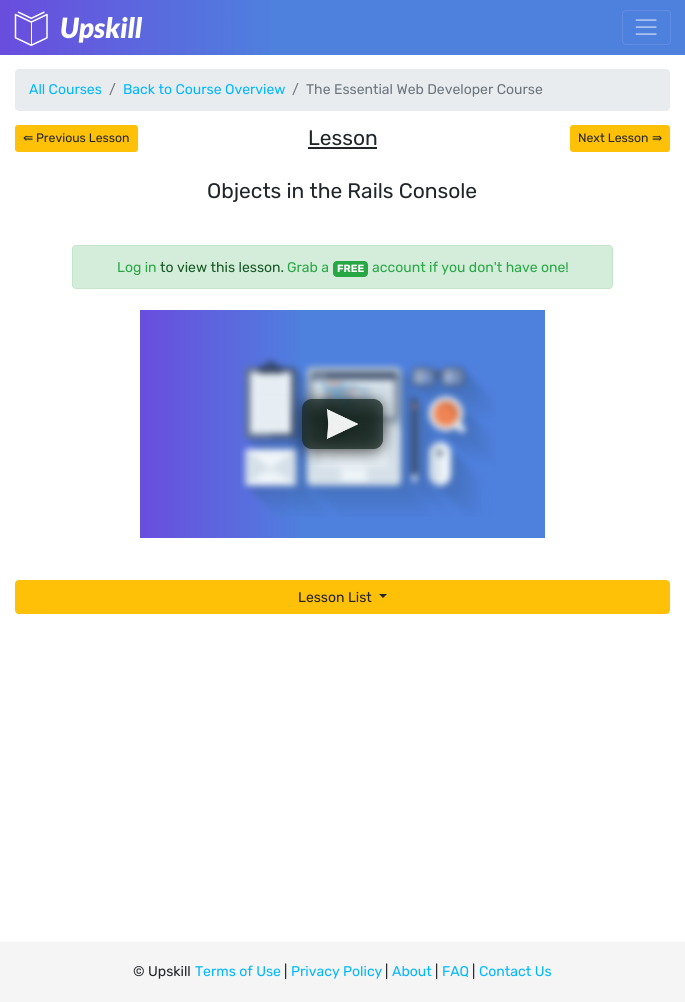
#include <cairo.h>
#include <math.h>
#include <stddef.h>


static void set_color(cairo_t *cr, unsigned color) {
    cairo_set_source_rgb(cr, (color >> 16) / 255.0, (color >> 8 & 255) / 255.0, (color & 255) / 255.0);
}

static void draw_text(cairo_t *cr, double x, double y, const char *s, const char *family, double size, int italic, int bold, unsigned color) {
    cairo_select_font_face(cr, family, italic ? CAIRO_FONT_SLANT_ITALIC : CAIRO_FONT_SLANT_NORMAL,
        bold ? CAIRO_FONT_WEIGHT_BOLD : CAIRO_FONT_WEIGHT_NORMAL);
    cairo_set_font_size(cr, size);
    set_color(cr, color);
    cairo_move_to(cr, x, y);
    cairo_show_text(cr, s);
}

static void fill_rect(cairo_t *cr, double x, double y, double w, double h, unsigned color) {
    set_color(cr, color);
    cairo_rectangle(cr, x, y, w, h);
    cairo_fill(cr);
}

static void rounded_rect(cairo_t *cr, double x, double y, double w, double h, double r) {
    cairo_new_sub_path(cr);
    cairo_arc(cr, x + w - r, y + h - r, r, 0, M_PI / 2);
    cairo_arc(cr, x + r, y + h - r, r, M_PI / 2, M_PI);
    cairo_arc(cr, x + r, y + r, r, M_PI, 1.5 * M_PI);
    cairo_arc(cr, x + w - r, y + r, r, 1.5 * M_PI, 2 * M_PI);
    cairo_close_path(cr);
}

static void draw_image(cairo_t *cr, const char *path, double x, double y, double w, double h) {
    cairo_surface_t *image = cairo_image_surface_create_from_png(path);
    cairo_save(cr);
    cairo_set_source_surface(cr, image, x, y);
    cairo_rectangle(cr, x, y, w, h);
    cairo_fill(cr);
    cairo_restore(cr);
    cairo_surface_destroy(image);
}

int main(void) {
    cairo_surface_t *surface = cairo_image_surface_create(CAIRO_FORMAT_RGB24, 685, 1002);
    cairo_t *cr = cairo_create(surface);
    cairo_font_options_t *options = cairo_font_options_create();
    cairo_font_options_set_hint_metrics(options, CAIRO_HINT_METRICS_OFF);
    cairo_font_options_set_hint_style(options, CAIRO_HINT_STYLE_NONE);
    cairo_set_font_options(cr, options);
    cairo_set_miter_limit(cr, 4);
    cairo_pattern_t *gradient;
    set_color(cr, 0xFFFFFF);
    cairo_paint(cr);
    gradient = cairo_pattern_create_linear(0, 28, 685, 27);
    cairo_pattern_add_color_stop_rgba(gradient, 0.01, 0.412, 0.306, 0.871, 1);
    cairo_pattern_add_color_stop_rgba(gradient, 0.4, 0.306, 0.502, 0.871, 1);
    cairo_set_source(cr, gradient);
    cairo_pattern_destroy(gradient);
    cairo_rectangle(cr, 0, 0, 685, 55);
    cairo_fill(cr);
    draw_image(cr, "assets/img1.png", 14, 11, 34, 35);
    draw_text(cr, 60, 38, "Upskill", "Lato Black", 28, 1, 0, 0xFFFFFF);
    rounded_rect(cr, 622.5, 10.5, 48, 34, 3.5);
    set_color(cr, 0x608DE1);
    cairo_set_line_width(cr, 1);
    cairo_stroke(cr);
    draw_image(cr, "assets/img2.png", 635, 19, 22, 16);
    set_color(cr, 0xE9ECEF);
    rounded_rect(cr, 15, 69, 655, 42, 4);
    cairo_fill(cr);
    draw_text(cr, 29, 94, "All Courses", "Rubik", 14, 0, 0, 0x00B7FF);
    draw_text(cr, 109, 94, "/", "Rubik", 14, 0, 0, 0x6C757D);
    draw_text(cr, 123, 94, "Back to Course Overview", "Rubik", 14, 0, 0, 0x00B7FF);
    draw_text(cr, 292, 94, "/", "Rubik", 14, 0, 0, 0x6C757D);
    draw_text(cr, 306, 94, "The Essential Web Developer Course", "Rubik", 14, 0, 0, 0x6C757D);
    set_color(cr, 0xFFC107);
    rounded_rect(cr, 15.5, 125.5, 122, 26, 2.5);
    cairo_fill_preserve(cr);
    cairo_stroke(cr);
    draw_text(cr, 23, 142, "⇚", "DejaVu Sans", 12.25, 0, 0, 0x212529);
    draw_text(cr, 36, 142, "Previous Lesson", "Rubik", 12.25, 0, 0, 0x212529);
    draw_text(cr, 308, 145, "Lesson", "Rubik", 21, 0, 0, 0x212529);
    fill_rect(cr, 308, 147, 69, 2, 0x212529);
    set_color(cr, 0xFFC107);
    rounded_rect(cr, 570.5, 125.5, 99, 26, 2.5);
    cairo_fill_preserve(cr);
    cairo_stroke(cr);
    draw_text(cr, 578, 142, "Next Lesson", "Rubik", 12.25, 0, 0, 0x212529);
    draw_text(cr, 652, 142, "⇛", "DejaVu Sans", 12.25, 0, 0, 0x212529);
    draw_text(cr, 207, 198, "Objects in the Rails Console", "Rubik", 21, 0, 0, 0x212529);
    set_color(cr, 0xD4EDDA);
    rounded_rect(cr, 72.5, 245.5, 540, 43, 3.5);
    cairo_fill_preserve(cr);
    set_color(cr, 0xC3E6CB);
    cairo_stroke(cr);
    draw_text(cr, 117, 272, "Log in", "Rubik", 14, 0, 0, 0x28A745);
    draw_text(cr, 160, 272, "to view this lesson.", "Rubik", 14, 0, 0, 0x155724);
    draw_text(cr, 287, 272, "Grab a", "Rubik", 14, 0, 0, 0x28A745);
    rounded_rect(cr, 333, 261, 35, 16, 4);
    cairo_fill(cr);
    draw_text(cr, 337, 272, "FREE", "Rubik", 10.5, 0, 1, 0xFFFFFF);
    draw_text(cr, 372, 272, "account if you don't have one!", "Rubik", 14, 0, 0, 0x28A745);
    gradient = cairo_pattern_create_linear(140, 424, 545, 424);
    cairo_pattern_add_color_stop_rgba(gradient, 0.01, 0.412, 0.306, 0.871, 1);
    cairo_pattern_add_color_stop_rgba(gradient, 0.4, 0.306, 0.502, 0.871, 1);
    cairo_set_source(cr, gradient);
    cairo_pattern_destroy(gradient);
    cairo_rectangle(cr, 140, 310, 405, 228);
    cairo_fill(cr);
    draw_image(cr, "assets/img3.png", 240, 356, 256, 161);
    draw_image(cr, "assets/img4.png", 288, 387, 109, 78);
    set_color(cr, 0xFFC107);
    rounded_rect(cr, 15.5, 580.5, 654, 33, 3.5);
    cairo_fill_preserve(cr);
    cairo_stroke(cr);
    draw_text(cr, 298, 602, "Lesson List", "Rubik", 14, 0, 0, 0x212529);
    cairo_new_path(cr);
    cairo_move_to(cr, 379, 594);
    cairo_line_to(cr, 387, 594);
    cairo_line_to(cr, 383, 598);
    cairo_close_path(cr);
    cairo_fill(cr);
    fill_rect(cr, 0, 942, 685, 60, 0xF5F5F5);
    draw_text(cr, 133, 976, "© Upskill", "Rubik", 14, 0, 0, 0x212529);
    draw_text(cr, 195, 976, "Terms of Use", "Rubik", 14, 0, 0, 0x00B7FF);
    draw_text(cr, 284, 976, "|", "Rubik", 14, 0, 0, 0x212529);
    draw_text(cr, 291, 976, "Privacy Policy", "Rubik", 14, 0, 0, 0x00B7FF);
    draw_text(cr, 385, 976, "|", "Rubik", 14, 0, 0, 0x212529);
    draw_text(cr, 392, 976, "About", "Rubik", 14, 0, 0, 0x00B7FF);
    draw_text(cr, 435, 976, "|", "Rubik", 14, 0, 0, 0x212529);
    draw_text(cr, 442, 976, "FAQ", "Rubik", 14, 0, 0, 0x00B7FF);
    draw_text(cr, 472, 976, "|", "Rubik", 14, 0, 0, 0x212529);
    draw_text(cr, 479, 976, "Contact Us", "Rubik", 14, 0, 0, 0x00B7FF);
    cairo_surface_write_to_png(surface, "output.png");
    cairo_font_options_destroy(options);
    cairo_destroy(cr);
    cairo_surface_destroy(surface);
    return 0;
}
